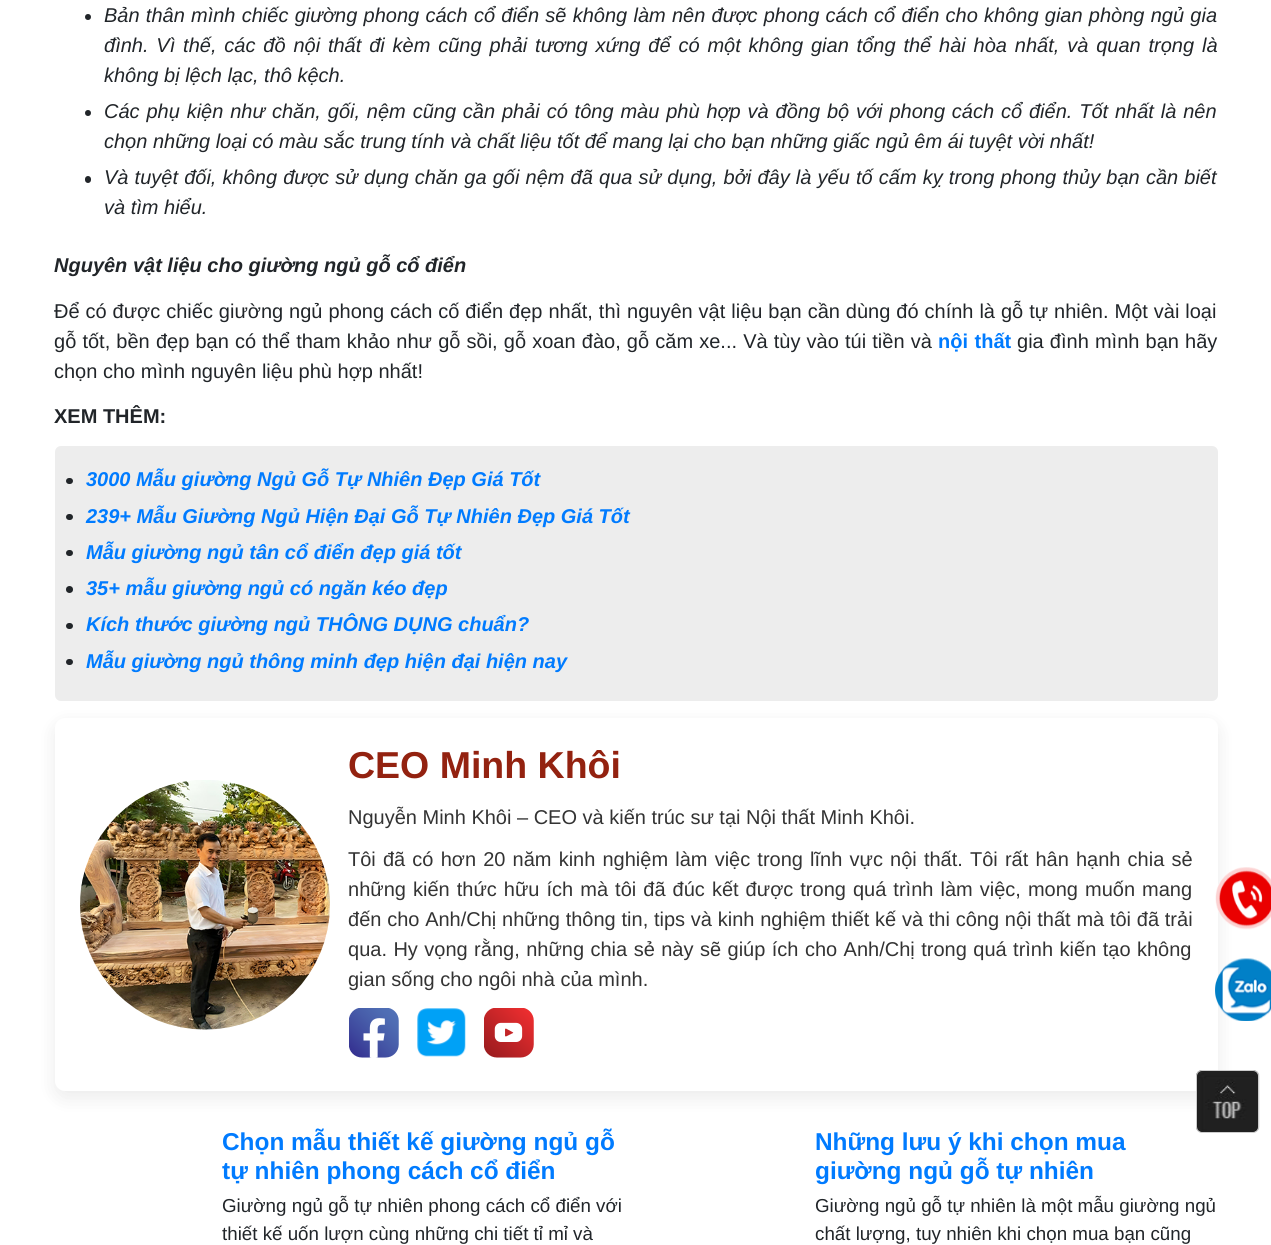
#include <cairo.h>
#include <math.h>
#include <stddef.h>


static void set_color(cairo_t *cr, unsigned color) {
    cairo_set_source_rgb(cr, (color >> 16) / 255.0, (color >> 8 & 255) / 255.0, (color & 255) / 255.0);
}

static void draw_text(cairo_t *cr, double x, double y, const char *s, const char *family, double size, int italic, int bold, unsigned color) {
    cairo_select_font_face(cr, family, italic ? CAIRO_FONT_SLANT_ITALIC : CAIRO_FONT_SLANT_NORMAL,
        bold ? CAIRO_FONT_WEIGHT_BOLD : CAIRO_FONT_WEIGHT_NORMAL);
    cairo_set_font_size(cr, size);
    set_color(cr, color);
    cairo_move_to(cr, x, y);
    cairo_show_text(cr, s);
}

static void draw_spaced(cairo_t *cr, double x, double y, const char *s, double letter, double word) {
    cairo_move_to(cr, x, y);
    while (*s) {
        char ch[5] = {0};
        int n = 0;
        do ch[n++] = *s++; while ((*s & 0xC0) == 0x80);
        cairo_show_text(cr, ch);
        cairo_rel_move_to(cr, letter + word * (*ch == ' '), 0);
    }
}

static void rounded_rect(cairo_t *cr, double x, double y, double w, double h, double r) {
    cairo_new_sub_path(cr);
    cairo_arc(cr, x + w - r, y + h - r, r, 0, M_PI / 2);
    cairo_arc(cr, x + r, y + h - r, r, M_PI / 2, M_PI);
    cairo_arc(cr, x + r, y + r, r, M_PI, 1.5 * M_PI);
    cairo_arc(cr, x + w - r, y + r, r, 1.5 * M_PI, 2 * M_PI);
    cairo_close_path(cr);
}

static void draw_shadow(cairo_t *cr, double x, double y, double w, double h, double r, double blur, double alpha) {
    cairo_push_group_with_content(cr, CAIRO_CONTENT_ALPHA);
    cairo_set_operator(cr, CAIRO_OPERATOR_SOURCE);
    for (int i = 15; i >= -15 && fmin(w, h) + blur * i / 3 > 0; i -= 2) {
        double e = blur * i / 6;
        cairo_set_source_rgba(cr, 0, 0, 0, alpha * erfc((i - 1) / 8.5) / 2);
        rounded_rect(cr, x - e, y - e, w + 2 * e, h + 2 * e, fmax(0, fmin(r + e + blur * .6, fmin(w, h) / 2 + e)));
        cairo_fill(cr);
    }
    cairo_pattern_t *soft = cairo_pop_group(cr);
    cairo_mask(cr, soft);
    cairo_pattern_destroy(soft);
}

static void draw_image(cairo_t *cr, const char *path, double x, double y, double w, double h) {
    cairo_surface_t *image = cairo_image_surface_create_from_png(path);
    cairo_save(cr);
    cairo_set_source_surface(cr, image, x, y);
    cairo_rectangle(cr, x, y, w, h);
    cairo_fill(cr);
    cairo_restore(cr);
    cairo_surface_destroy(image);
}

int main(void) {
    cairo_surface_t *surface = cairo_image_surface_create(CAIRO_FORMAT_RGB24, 1271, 1245);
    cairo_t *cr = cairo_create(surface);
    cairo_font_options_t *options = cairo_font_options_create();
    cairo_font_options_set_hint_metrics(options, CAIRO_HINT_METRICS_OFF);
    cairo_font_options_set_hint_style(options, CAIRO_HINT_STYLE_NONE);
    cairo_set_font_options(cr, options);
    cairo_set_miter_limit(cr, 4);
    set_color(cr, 0xFFFFFF);
    cairo_paint(cr);
    set_color(cr, 0x212529);
    cairo_arc(cr, 88, 17, 3, 0, 2 * M_PI);
    cairo_fill(cr);
    cairo_select_font_face(cr, "Liberation Sans", CAIRO_FONT_SLANT_ITALIC, CAIRO_FONT_WEIGHT_NORMAL);
    cairo_set_font_size(cr, 20);
    draw_spaced(cr, 104, 22, "Bản thân mình chiếc giường phong cách cổ điển sẽ không làm nên được phong cách cổ điển cho không gian phòng ngủ gia", 0, 0.7);
    draw_spaced(cr, 104, 52, "đình. Vì thế, các đồ nội thất đi kèm cũng phải tương xứng để có một không gian tổng thể hài hòa nhất, và quan trọng là", 0, 2.3);
    draw_text(cr, 104, 82, "không bị lệch lạc, thô kệch.", "Liberation Sans", 20, 1, 0, 0x212529);
    cairo_new_path(cr);
    cairo_arc(cr, 88, 113, 3, 0, 2 * M_PI);
    cairo_fill(cr);
    draw_spaced(cr, 104, 118, "Các phụ kiện như chăn, gối, nệm cũng cần phải có tông màu phù hợp và đồng bộ với phong cách cổ điển. Tốt nhất là nên", 0, 1.3);
    draw_text(cr, 104, 148, "chọn những loại có màu sắc trung tính và chất liệu tốt để mang lại cho bạn những giấc ngủ êm ái tuyệt vời nhất!", "Liberation Sans", 20, 1, 0, 0x212529);
    rounded_rect(cr, 85, 176, 6, 7, 3);
    cairo_fill(cr);
    draw_spaced(cr, 104, 184, "Và tuyệt đối, không được sử dụng chăn ga gối nệm đã qua sử dụng, bởi đây là yếu tố cấm kỵ trong phong thủy bạn cần biết", 0, 0.6);
    draw_text(cr, 104, 214, "và tìm hiểu.", "Liberation Sans", 20, 1, 0, 0x212529);
    draw_text(cr, 54, 272, "Nguyên vật liệu cho giường ngủ gỗ cổ điển", "Liberation Sans", 20, 1, 1, 0x212529);
    cairo_select_font_face(cr, "Liberation Sans", CAIRO_FONT_SLANT_NORMAL, CAIRO_FONT_WEIGHT_NORMAL);
    draw_spaced(cr, 54, 318, "Để có được chiếc giường ngủ phong cách cố điển đẹp nhất, thì nguyên vật liệu bạn cần dùng đó chính là gỗ tự nhiên. Một vài loại", 0, 0.4);
    draw_spaced(cr, 54, 348, "gỗ tốt, bền đẹp bạn có thể tham khảo như gỗ sồi, gỗ xoan đào, gỗ căm xe... Và tùy vào túi tiền và", 0, 0.6);
    cairo_select_font_face(cr, "Liberation Sans", CAIRO_FONT_SLANT_NORMAL, CAIRO_FONT_WEIGHT_BOLD);
    set_color(cr, 0x007BFF);
    draw_spaced(cr, 938, 348, "nội thất", 0, 1);
    cairo_select_font_face(cr, "Liberation Sans", CAIRO_FONT_SLANT_NORMAL, CAIRO_FONT_WEIGHT_NORMAL);
    set_color(cr, 0x212529);
    draw_spaced(cr, 1017, 348, "gia đình mình bạn hãy", 0, 0.6);
    draw_text(cr, 54, 378, "chọn cho mình nguyên liệu phù hợp nhất!", "Liberation Sans", 20, 0, 0, 0x212529);
    draw_text(cr, 54, 423, "XEM THÊM:", "Liberation Sans", 20, 0, 1, 0x212529);
    set_color(cr, 0xEDEDED);
    rounded_rect(cr, 55, 446, 1163, 255, 6);
    cairo_fill(cr);
    set_color(cr, 0x212529);
    rounded_rect(cr, 66, 478, 7, 6, 3);
    cairo_fill(cr);
    draw_text(cr, 86, 486, "3000 Mẫu giường Ngủ Gỗ Tự Nhiên Đẹp Giá Tốt", "Liberation Sans", 20, 1, 1, 0x007BFF);
    set_color(cr, 0x212529);
    rounded_rect(cr, 66, 514, 7, 6, 3);
    cairo_fill(cr);
    draw_text(cr, 86, 523, "239+ Mẫu Giường Ngủ Hiện Đại Gỗ Tự Nhiên Đẹp Giá Tốt", "Liberation Sans", 20, 1, 1, 0x007BFF);
    set_color(cr, 0x212529);
    rounded_rect(cr, 66, 550, 7, 6, 3);
    cairo_fill(cr);
    draw_text(cr, 86, 559, "Mẫu giường ngủ tân cổ điển đẹp giá tốt", "Liberation Sans", 20, 1, 1, 0x007BFF);
    set_color(cr, 0x212529);
    cairo_new_path(cr);
    cairo_arc(cr, 69.5, 589.5, 3.5, 0, 2 * M_PI);
    cairo_fill(cr);
    draw_text(cr, 86, 595, "35+ mẫu giường ngủ có ngăn kéo đẹp", "Liberation Sans", 20, 1, 1, 0x007BFF);
    set_color(cr, 0x212529);
    rounded_rect(cr, 66, 623, 7, 6, 3);
    cairo_fill(cr);
    draw_text(cr, 86, 631, "Kích thước giường ngủ THÔNG DỤNG chuẩn?", "Liberation Sans", 20, 1, 1, 0x007BFF);
    set_color(cr, 0x212529);
    rounded_rect(cr, 66, 659, 7, 6, 3);
    cairo_fill(cr);
    draw_text(cr, 86, 668, "Mẫu giường ngủ thông minh đẹp hiện đại hiện nay", "Liberation Sans", 20, 1, 1, 0x007BFF);
    set_color(cr, 0x000000);
    draw_shadow(cr, 55, 724, 1163, 374, 10, 9.5, 0.08);
    set_color(cr, 0xFFFFFF);
    rounded_rect(cr, 55, 718, 1163, 373, 10);
    cairo_fill(cr);
    draw_image(cr, "assets/img1.png", 80, 780, 250, 250);
    draw_text(cr, 348, 778, "CEO Minh Khôi", "Liberation Sans", 37.5, 0, 1, 0x932210);
    draw_text(cr, 348, 824, "Nguyễn Minh Khôi – CEO và kiến trúc sư tại Nội thất Minh Khôi.", "Liberation Sans", 20, 0, 0, 0x333333);
    draw_spaced(cr, 348, 866, "Tôi đã có hơn 20 năm kinh nghiệm làm việc trong lĩnh vực nội thất. Tôi rất hân hạnh chia sẻ", 0, 1.6);
    draw_spaced(cr, 348, 896, "những kiến thức hữu ích mà tôi đã đúc kết được trong quá trình làm việc, mong muốn mang", 0, 1.5);
    draw_spaced(cr, 348, 926, "đến cho Anh/Chị những thông tin, tips và kinh nghiệm thiết kế và thi công nội thất mà tôi đã trải", 0, 0.2);
    draw_spaced(cr, 348, 956, "qua. Hy vọng rằng, những chia sẻ này sẽ giúp ích cho Anh/Chị trong quá trình kiến tạo không", 0, 0.9);
    draw_text(cr, 348, 986, "gian sống cho ngôi nhà của mình.", "Liberation Sans", 20, 0, 0, 0x333333);
    draw_image(cr, "assets/img2.png", 349, 1008, 50, 50);
    draw_image(cr, "assets/img3.png", 417, 1008, 49, 49);
    draw_image(cr, "assets/img4.png", 484, 1008, 50, 50);
    draw_text(cr, 222, 1150, "Chọn mẫu thiết kế giường ngủ gỗ", "Liberation Sans", 24.4, 0, 1, 0x007BFF);
    draw_text(cr, 222, 1179, "tự nhiên phong cách cổ điển", "Liberation Sans", 24.4, 0, 1, 0x007BFF);
    draw_text(cr, 222, 1212, "Giường ngủ gỗ tự nhiên phong cách cổ điển với", "Liberation Sans", 18.75, 0, 0, 0x212529);
    draw_text(cr, 222, 1240, "thiết kế uốn lượn cùng những chi tiết tỉ mỉ và", "Liberation Sans", 18.75, 0, 0, 0x212529);
    draw_text(cr, 815, 1150, "Những lưu ý khi chọn mua", "Liberation Sans", 24.4, 0, 1, 0x007BFF);
    draw_text(cr, 815, 1179, "giường ngủ gỗ tự nhiên", "Liberation Sans", 24.4, 0, 1, 0x007BFF);
    draw_text(cr, 815, 1212, "Giường ngủ gỗ tự nhiên là một mẫu giường ngủ", "Liberation Sans", 18.75, 0, 0, 0x212529);
    draw_text(cr, 815, 1240, "chất lượng, tuy nhiên khi chọn mua bạn cũng", "Liberation Sans", 18.75, 0, 0, 0x212529);
    draw_image(cr, "assets/img5.png", 1215, 867, 56, 63);
    draw_image(cr, "assets/img6.png", 1215, 958, 56, 63);
    draw_image(cr, "assets/img7.png", 1196, 1070, 64, 63);
    rounded_rect(cr, 1196.5, 1070.5, 62, 62, 5.5);
    set_color(cr, 0xCCCCCC);
    cairo_set_line_width(cr, 1);
    cairo_stroke(cr);
    cairo_surface_write_to_png(surface, "output.png");
    cairo_font_options_destroy(options);
    cairo_destroy(cr);
    cairo_surface_destroy(surface);
    return 0;
}
